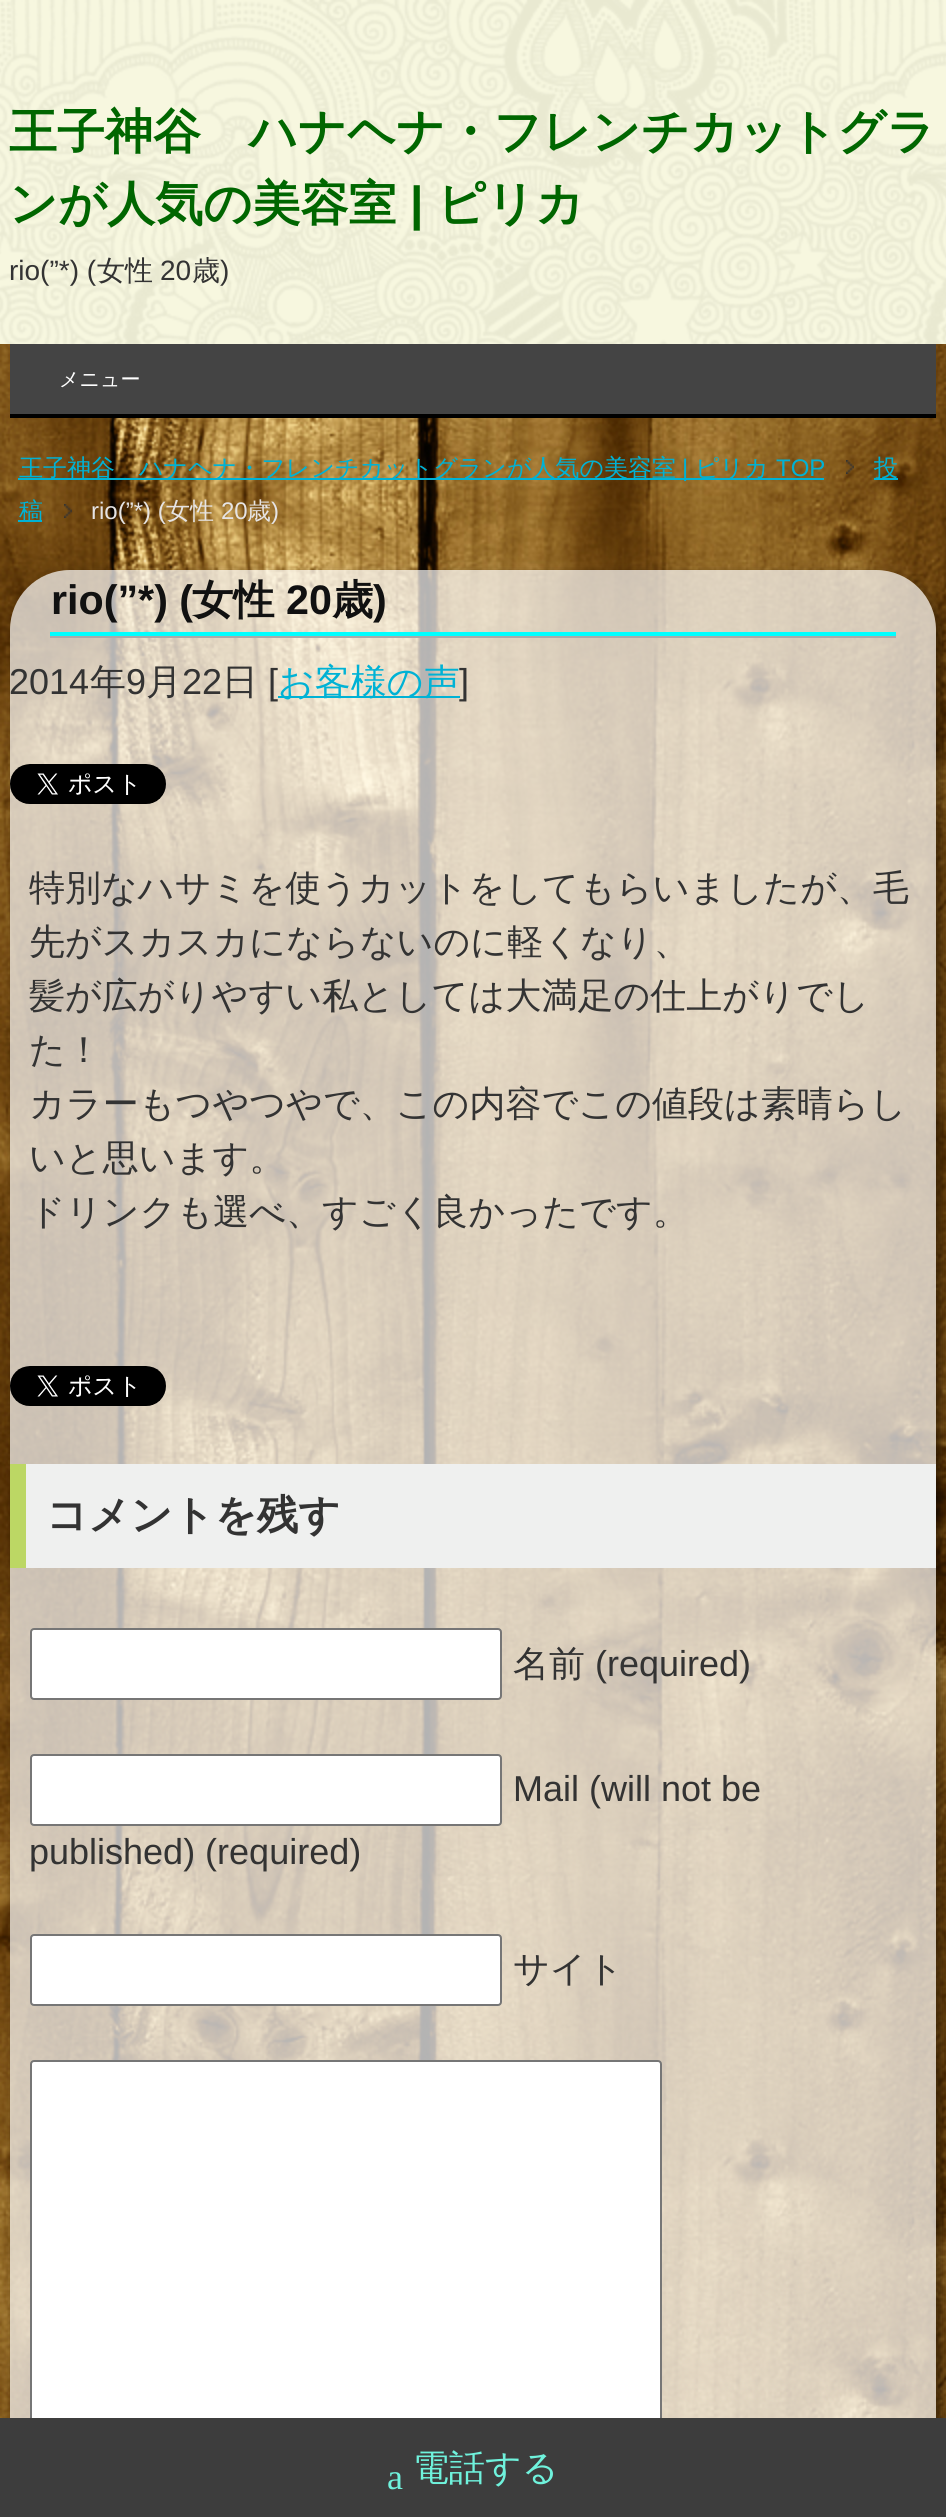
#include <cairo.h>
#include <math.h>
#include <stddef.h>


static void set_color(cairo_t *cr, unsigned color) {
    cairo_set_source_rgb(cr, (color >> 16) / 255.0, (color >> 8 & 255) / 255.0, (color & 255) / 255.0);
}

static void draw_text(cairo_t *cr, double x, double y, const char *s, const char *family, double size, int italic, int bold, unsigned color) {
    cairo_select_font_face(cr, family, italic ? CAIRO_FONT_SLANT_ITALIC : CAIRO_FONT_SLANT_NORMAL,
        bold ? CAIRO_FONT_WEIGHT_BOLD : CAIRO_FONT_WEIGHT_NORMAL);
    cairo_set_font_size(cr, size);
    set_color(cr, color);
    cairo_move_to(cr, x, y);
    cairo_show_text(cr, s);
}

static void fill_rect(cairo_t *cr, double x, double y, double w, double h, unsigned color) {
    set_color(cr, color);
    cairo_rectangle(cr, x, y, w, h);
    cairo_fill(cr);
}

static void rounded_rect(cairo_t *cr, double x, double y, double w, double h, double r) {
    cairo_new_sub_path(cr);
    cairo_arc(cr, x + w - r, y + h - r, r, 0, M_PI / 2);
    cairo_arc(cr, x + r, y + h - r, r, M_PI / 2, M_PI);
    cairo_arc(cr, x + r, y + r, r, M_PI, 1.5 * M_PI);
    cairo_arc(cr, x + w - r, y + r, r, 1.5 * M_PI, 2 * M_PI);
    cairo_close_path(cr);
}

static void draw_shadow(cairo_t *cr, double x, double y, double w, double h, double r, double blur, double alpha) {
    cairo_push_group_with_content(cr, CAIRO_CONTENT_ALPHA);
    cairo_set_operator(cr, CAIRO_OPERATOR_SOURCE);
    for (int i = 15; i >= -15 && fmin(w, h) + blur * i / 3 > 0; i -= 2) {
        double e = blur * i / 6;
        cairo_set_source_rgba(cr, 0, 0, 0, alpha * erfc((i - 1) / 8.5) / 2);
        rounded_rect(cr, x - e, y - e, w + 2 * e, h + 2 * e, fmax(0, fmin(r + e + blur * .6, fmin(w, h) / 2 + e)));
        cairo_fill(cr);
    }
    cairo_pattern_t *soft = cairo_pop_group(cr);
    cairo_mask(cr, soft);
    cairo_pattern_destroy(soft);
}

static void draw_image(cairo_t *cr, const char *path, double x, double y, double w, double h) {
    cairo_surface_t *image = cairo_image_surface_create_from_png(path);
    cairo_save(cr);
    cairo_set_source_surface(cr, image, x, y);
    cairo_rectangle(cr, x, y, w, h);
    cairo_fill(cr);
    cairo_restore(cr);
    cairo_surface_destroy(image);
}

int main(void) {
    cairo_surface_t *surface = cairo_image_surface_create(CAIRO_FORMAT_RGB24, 946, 2517);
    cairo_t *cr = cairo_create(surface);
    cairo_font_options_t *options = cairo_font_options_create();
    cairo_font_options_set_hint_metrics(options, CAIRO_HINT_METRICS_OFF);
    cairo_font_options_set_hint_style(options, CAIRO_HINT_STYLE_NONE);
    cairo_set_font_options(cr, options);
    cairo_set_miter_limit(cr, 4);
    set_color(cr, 0xFFFFFF);
    cairo_paint(cr);
    draw_image(cr, "assets/img1.png", 0, 344, 946, 2074);
    draw_image(cr, "assets/img2.png", 0, 0, 946, 344);
    draw_text(cr, 9, 148, "王子神谷　ハナヘナ・フレンチカットグラ", "WenQuanYi Zen Hei", 48, 0, 1, 0x006600);
    draw_text(cr, 9, 220, "ンが人気の美容室", "WenQuanYi Zen Hei", 48, 0, 1, 0x006600);
    draw_text(cr, 410, 220, "|", "Liberation Sans", 48, 0, 1, 0x006600);
    draw_text(cr, 437, 220, "ピリカ", "WenQuanYi Zen Hei", 48, 0, 1, 0x006600);
    draw_text(cr, 9, 280, "rio(”*) (", "Liberation Sans", 28, 0, 0, 0x333333);
    draw_text(cr, 97, 280, "女性", "WenQuanYi Zen Hei Medium", 28, 0, 0, 0x333333);
    draw_text(cr, 160, 280, "20", "Liberation Sans", 28, 0, 0, 0x333333);
    draw_text(cr, 192, 280, "歳", "WenQuanYi Zen Hei Medium", 28, 0, 0, 0x333333);
    draw_text(cr, 220, 280, ")", "Liberation Sans", 28, 0, 0, 0x333333);
    fill_rect(cr, 10, 344, 926, 70, 0x444444);
    fill_rect(cr, 10, 414, 926, 4, 0x000000);
    draw_text(cr, 59, 386, "メニュー", "WenQuanYi Zen Hei Medium", 20, 0, 0, 0xFFFFFF);
    fill_rect(cr, 18, 478, 806, 2, 0x00B2D5);
    draw_text(cr, 19, 476, "王子神谷　ハナヘナ・フレンチカットグランが人気の美容室", "WenQuanYi Zen Hei Medium", 24, 0, 0, 0x00B2D5);
    draw_text(cr, 682, 476, "|", "Liberation Sans", 24, 0, 0, 0x00B2D5);
    draw_text(cr, 695, 476, "ピリカ", "WenQuanYi Zen Hei Medium", 24, 0, 0, 0x00B2D5);
    draw_text(cr, 776, 476, "TOP", "Liberation Sans", 24, 0, 0, 0x00B2D5);
    draw_image(cr, "assets/img3.png", 846, 460, 8, 14);
    fill_rect(cr, 874, 478, 24, 2, 0x00B2D5);
    draw_text(cr, 874, 476, "投", "WenQuanYi Zen Hei Medium", 24, 0, 0, 0x00B2D5);
    fill_rect(cr, 18, 520, 24, 2, 0x00B2D5);
    draw_text(cr, 19, 519, "稿", "WenQuanYi Zen Hei Medium", 24, 0, 0, 0x00B2D5);
    draw_image(cr, "assets/img4.png", 64, 504, 8, 14);
    draw_text(cr, 91, 519, "rio(”*) (", "Liberation Sans", 24, 0, 0, 0xE6E4E4);
    draw_text(cr, 166, 519, "女性", "WenQuanYi Zen Hei Medium", 24, 0, 0, 0xE6E4E4);
    draw_text(cr, 221, 519, "20", "Liberation Sans", 24, 0, 0, 0xE6E4E4);
    draw_text(cr, 247, 519, "歳", "WenQuanYi Zen Hei Medium", 24, 0, 0, 0xE6E4E4);
    draw_text(cr, 271, 519, ")", "Liberation Sans", 24, 0, 0, 0xE6E4E4);
    cairo_save(cr);
    cairo_set_fill_rule(cr, CAIRO_FILL_RULE_EVEN_ODD);
    cairo_new_path(cr);
    cairo_move_to(cr, 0, 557);
    cairo_line_to(cr, 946, 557);
    cairo_line_to(cr, 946, 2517);
    cairo_line_to(cr, 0, 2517);
    cairo_close_path(cr);
    cairo_move_to(cr, 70, 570);
    cairo_line_to(cr, 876, 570);
    cairo_curve_to(cr, 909, 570, 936, 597, 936, 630);
    cairo_line_to(cr, 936, 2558);
    cairo_curve_to(cr, 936, 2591, 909, 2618, 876, 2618);
    cairo_line_to(cr, 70, 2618);
    cairo_curve_to(cr, 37, 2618, 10, 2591, 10, 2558);
    cairo_line_to(cr, 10, 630);
    cairo_curve_to(cr, 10, 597, 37, 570, 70, 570);
    cairo_close_path(cr);
    cairo_clip(cr);
    set_color(cr, 0x000000);
    draw_shadow(cr, 16, 576, 926, 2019, 60, 6, 0.4);
    cairo_restore(cr);
    cairo_set_source_rgba(cr, 1, 1, 1, 0.7);
    rounded_rect(cr, 10, 570, 926, 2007, 60);
    cairo_fill(cr);
    fill_rect(cr, 50, 636, 846, 2, 0xAAAAAA);
    fill_rect(cr, 50, 632, 846, 4, 0x00FFFF);
    draw_text(cr, 51, 614, "rio(”*) (", "Liberation Sans", 41.25, 0, 1, 0x111111);
    draw_text(cr, 192, 614, "女性", "WenQuanYi Zen Hei", 41.25, 0, 1, 0x111111);
    draw_text(cr, 286, 614, "20", "Liberation Sans", 41.25, 0, 1, 0x111111);
    draw_text(cr, 332, 614, "歳", "WenQuanYi Zen Hei", 41.25, 0, 1, 0x111111);
    draw_text(cr, 373, 614, ")", "Liberation Sans", 41.25, 0, 1, 0x111111);
    draw_text(cr, 9, 694, "2014", "Liberation Sans", 36, 0, 0, 0x333333);
    draw_text(cr, 90, 694, "年", "WenQuanYi Zen Hei Medium", 36, 0, 0, 0x333333);
    draw_text(cr, 126, 694, "9", "Liberation Sans", 36, 0, 0, 0x333333);
    draw_text(cr, 146, 694, "月", "WenQuanYi Zen Hei Medium", 36, 0, 0, 0x333333);
    draw_text(cr, 182, 694, "22", "Liberation Sans", 36, 0, 0, 0x333333);
    draw_text(cr, 222, 694, "日", "WenQuanYi Zen Hei Medium", 36, 0, 0, 0x333333);
    draw_text(cr, 268, 694, "[", "Liberation Sans", 36, 0, 0, 0x333333);
    fill_rect(cr, 278, 696, 182, 2, 0x00B2D5);
    draw_text(cr, 278, 694, "お客様の声", "WenQuanYi Zen Hei Medium", 36, 0, 0, 0x00B2D5);
    draw_text(cr, 459, 694, "]", "Liberation Sans", 36, 0, 0, 0x333333);
    draw_image(cr, "assets/img5.png", 10, 764, 156, 40);
    draw_text(cr, 29, 900, "特別なハサミを使うカットをしてもらいましたが、毛", "WenQuanYi Zen Hei Medium", 36, 0, 0, 0x333333);
    draw_text(cr, 29, 954, "先がスカスカにならないのに軽くなり、", "WenQuanYi Zen Hei Medium", 36, 0, 0, 0x333333);
    draw_text(cr, 29, 1008, "髪が広がりやすい私としては大満足の仕上がりでし", "WenQuanYi Zen Hei Medium", 36, 0, 0, 0x333333);
    draw_text(cr, 29, 1062, "た！", "WenQuanYi Zen Hei Medium", 36, 0, 0, 0x333333);
    draw_text(cr, 29, 1116, "カラーもつやつやで、この内容でこの値段は素晴らし", "WenQuanYi Zen Hei Medium", 36, 0, 0, 0x333333);
    draw_text(cr, 29, 1170, "いと思います。", "WenQuanYi Zen Hei Medium", 36, 0, 0, 0x333333);
    draw_text(cr, 29, 1224, "ドリンクも選べ、すごく良かったです。", "WenQuanYi Zen Hei Medium", 36, 0, 0, 0x333333);
    draw_image(cr, "assets/img6.png", 10, 1366, 156, 40);
    fill_rect(cr, 26, 1464, 910, 104, 0xEFF0EF);
    fill_rect(cr, 10, 1464, 16, 104, 0xBCD764);
    draw_text(cr, 46, 1529, "コメントを残す", "WenQuanYi Zen Hei", 41.25, 0, 1, 0x333333);
    set_color(cr, 0xFFFFFF);
    rounded_rect(cr, 31, 1629, 470, 70, 3);
    cairo_fill_preserve(cr);
    set_color(cr, 0x767676);
    cairo_stroke(cr);
    draw_text(cr, 513, 1676, "名前", "WenQuanYi Zen Hei Medium", 36, 0, 0, 0x333333);
    draw_text(cr, 595, 1676, "(required)", "Liberation Sans", 36, 0, 0, 0x333333);
    set_color(cr, 0xFFFFFF);
    rounded_rect(cr, 31, 1755, 470, 70, 3);
    cairo_fill_preserve(cr);
    set_color(cr, 0x767676);
    cairo_stroke(cr);
    draw_text(cr, 513, 1801, "Mail (will not be", "Liberation Sans", 36, 0, 0, 0x333333);
    draw_text(cr, 29, 1864, "published) (required)", "Liberation Sans", 36, 0, 0, 0x333333);
    set_color(cr, 0xFFFFFF);
    rounded_rect(cr, 31, 1935, 470, 70, 3);
    cairo_fill_preserve(cr);
    set_color(cr, 0x767676);
    cairo_stroke(cr);
    draw_text(cr, 513, 1981, "サイト", "WenQuanYi Zen Hei Medium", 36, 0, 0, 0x333333);
    set_color(cr, 0xFFFFFF);
    rounded_rect(cr, 31, 2061, 630, 430, 3);
    cairo_fill_preserve(cr);
    set_color(cr, 0x767676);
    cairo_stroke(cr);
    fill_rect(cr, 0, 2418, 946, 99, 0x3D3D3D);
    draw_text(cr, 387, 2489, "a", "Liberation Serif", 36, 0, 0, 0x6FF2DC);
    draw_text(cr, 413, 2480, "電話する", "WenQuanYi Zen Hei Medium", 36, 0, 0, 0x6FF2DC);
    cairo_surface_write_to_png(surface, "output.png");
    cairo_font_options_destroy(options);
    cairo_destroy(cr);
    cairo_surface_destroy(surface);
    return 0;
}
